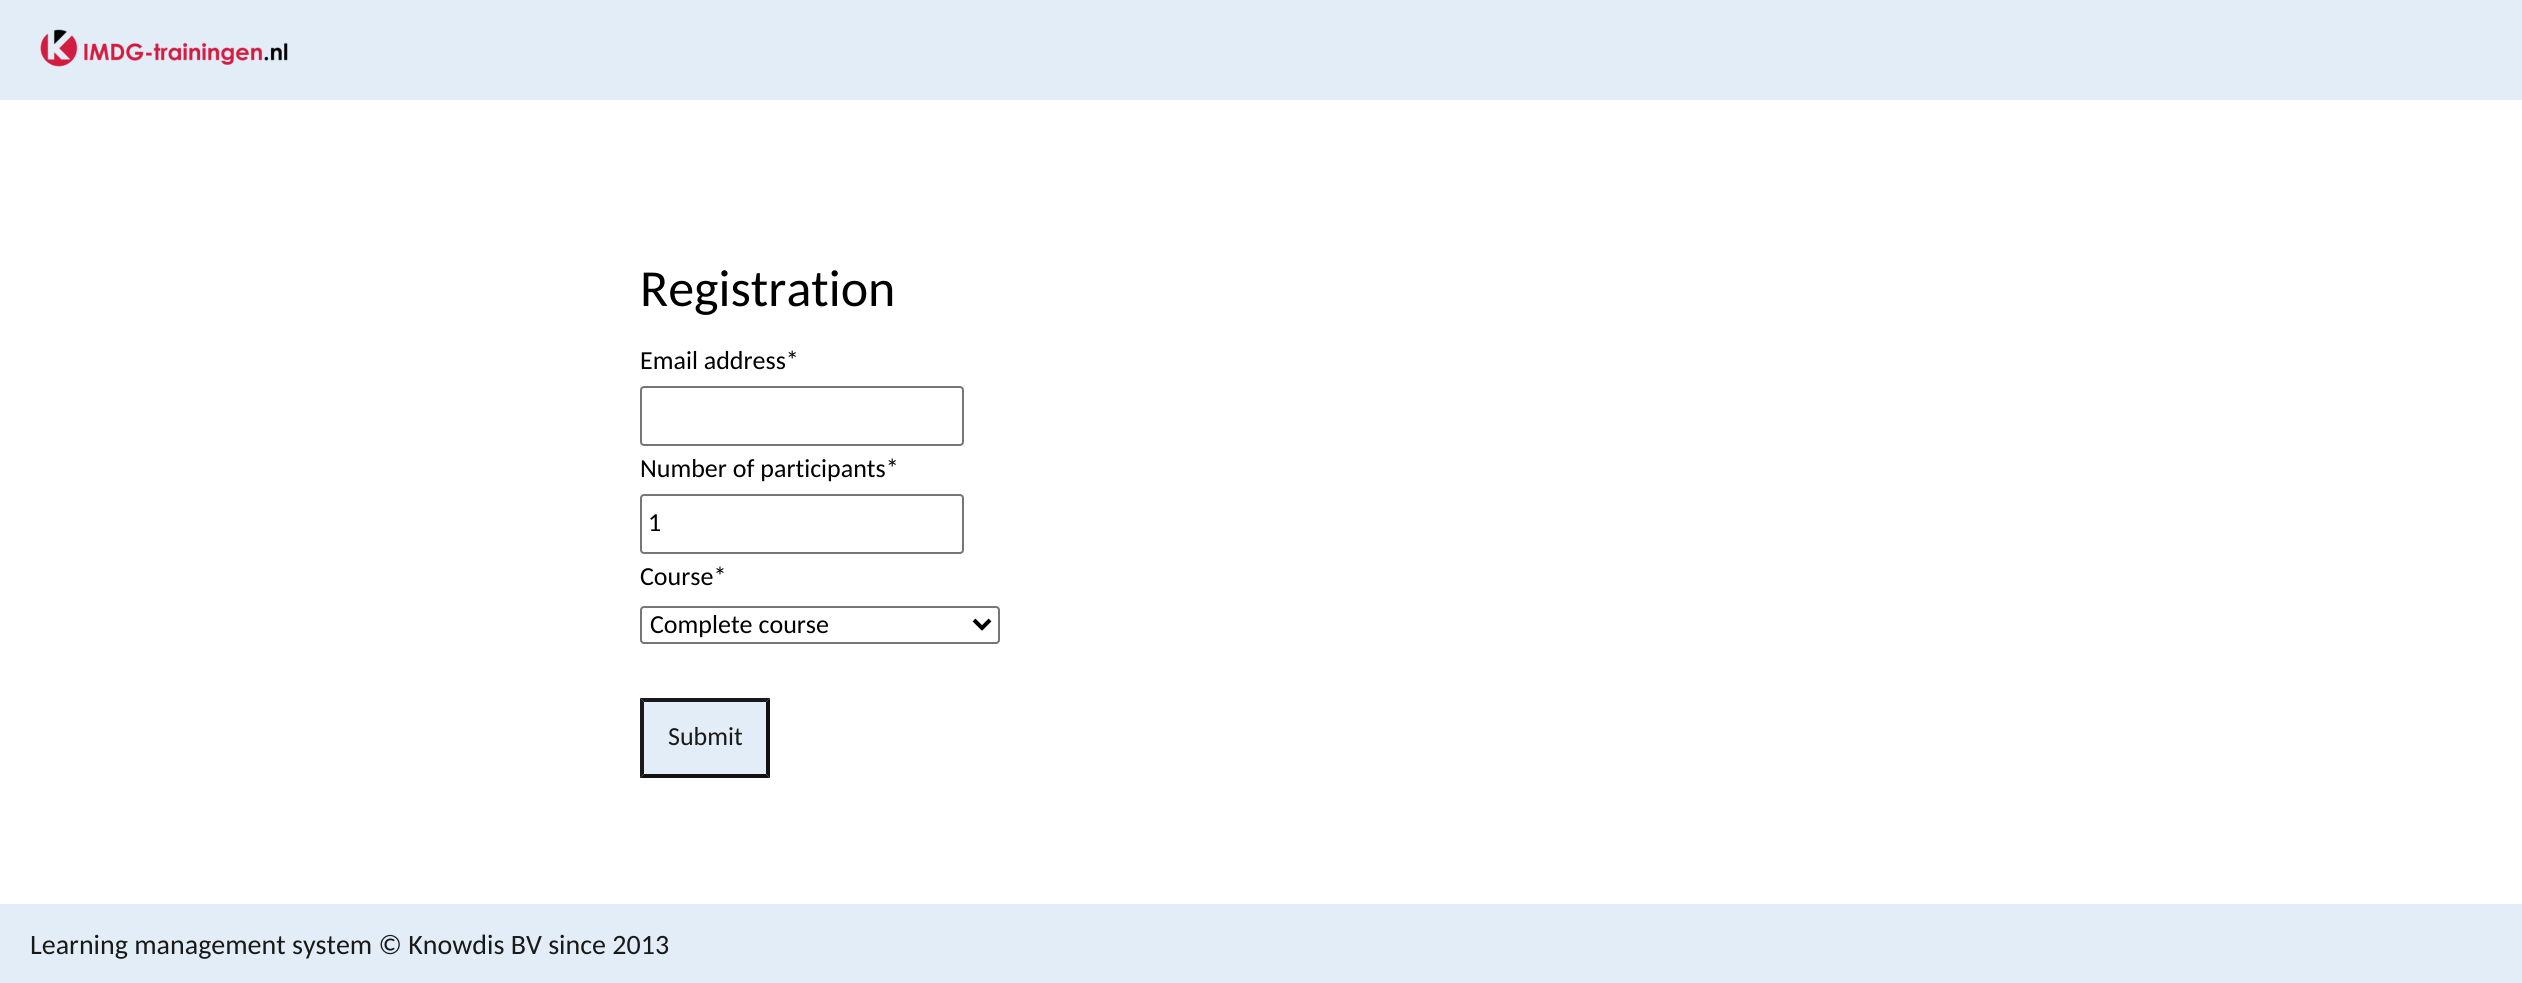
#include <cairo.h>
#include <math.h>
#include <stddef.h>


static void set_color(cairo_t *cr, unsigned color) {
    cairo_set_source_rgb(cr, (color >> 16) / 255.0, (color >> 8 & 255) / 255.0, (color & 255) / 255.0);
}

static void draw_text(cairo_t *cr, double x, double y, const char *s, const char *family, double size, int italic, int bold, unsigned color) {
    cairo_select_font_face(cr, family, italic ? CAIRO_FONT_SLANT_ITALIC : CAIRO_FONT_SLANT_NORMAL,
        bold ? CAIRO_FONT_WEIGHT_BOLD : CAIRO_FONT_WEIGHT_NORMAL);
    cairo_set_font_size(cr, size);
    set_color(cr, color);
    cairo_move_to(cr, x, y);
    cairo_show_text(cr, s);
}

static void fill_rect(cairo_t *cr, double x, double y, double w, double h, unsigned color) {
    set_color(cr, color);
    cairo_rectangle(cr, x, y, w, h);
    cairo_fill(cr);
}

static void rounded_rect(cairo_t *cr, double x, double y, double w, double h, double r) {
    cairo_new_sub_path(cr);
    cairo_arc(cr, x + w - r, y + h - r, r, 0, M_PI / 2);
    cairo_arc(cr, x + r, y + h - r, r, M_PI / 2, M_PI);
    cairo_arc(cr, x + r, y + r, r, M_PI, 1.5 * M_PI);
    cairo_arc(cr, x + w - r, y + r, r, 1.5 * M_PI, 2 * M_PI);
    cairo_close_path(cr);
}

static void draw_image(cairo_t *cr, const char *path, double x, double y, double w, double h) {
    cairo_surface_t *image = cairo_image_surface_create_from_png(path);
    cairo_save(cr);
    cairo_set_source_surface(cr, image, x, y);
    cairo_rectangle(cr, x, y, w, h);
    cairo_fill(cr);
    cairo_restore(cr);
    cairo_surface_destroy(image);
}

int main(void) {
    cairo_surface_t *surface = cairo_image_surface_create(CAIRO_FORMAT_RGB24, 2522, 983);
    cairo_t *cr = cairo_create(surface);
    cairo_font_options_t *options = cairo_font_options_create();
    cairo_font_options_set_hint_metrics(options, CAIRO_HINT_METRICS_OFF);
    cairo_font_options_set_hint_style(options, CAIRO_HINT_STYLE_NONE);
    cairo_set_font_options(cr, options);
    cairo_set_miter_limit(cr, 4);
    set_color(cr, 0xFFFFFF);
    cairo_paint(cr);
    fill_rect(cr, 0, 0, 2522, 100, 0xE3EDF7);
    draw_image(cr, "assets/img1.png", 40, 29, 248, 38);
    draw_text(cr, 640, 306, "Registration", "Carlito", 52, 0, 0, 0x000000);
    draw_text(cr, 640, 369, "Email address*", "Carlito", 26, 0, 0, 0x000000);
    rounded_rect(cr, 641, 387, 322, 58, 3);
    set_color(cr, 0x767676);
    cairo_stroke(cr);
    draw_text(cr, 640, 477, "Number of participants*", "Carlito", 26, 0, 0, 0x000000);
    rounded_rect(cr, 641, 495, 322, 58, 3);
    set_color(cr, 0x767676);
    cairo_stroke(cr);
    draw_text(cr, 648, 531, "1", "Carlito", 26, 0, 0, 0x000000);
    draw_text(cr, 640, 585, "Course*", "Carlito", 26, 0, 0, 0x000000);
    rounded_rect(cr, 641, 607, 358, 36, 3);
    set_color(cr, 0x767676);
    cairo_stroke(cr);
    cairo_new_path(cr);
    cairo_move_to(cr, 974, 620);
    cairo_line_to(cr, 982, 628);
    cairo_line_to(cr, 990, 620);
    set_color(cr, 0x000000);
    cairo_set_line_width(cr, 4);
    cairo_stroke(cr);
    draw_text(cr, 650, 633, "Complete course", "Carlito", 26, 0, 0, 0x000000);
    fill_rect(cr, 640, 698, 130, 80, 0xE3EDF7);
    set_color(cr, 0x191919);
    cairo_new_path(cr);
    cairo_move_to(cr, 640, 698);
    cairo_line_to(cr, 770, 698);
    cairo_line_to(cr, 766, 702);
    cairo_line_to(cr, 644, 702);
    cairo_close_path(cr);
    cairo_fill(cr);
    set_color(cr, 0x111111);
    cairo_new_path(cr);
    cairo_move_to(cr, 770, 698);
    cairo_line_to(cr, 770, 778);
    cairo_line_to(cr, 766, 774);
    cairo_line_to(cr, 766, 702);
    cairo_close_path(cr);
    cairo_fill(cr);
    cairo_new_path(cr);
    cairo_move_to(cr, 770, 778);
    cairo_line_to(cr, 640, 778);
    cairo_line_to(cr, 644, 774);
    cairo_line_to(cr, 766, 774);
    cairo_close_path(cr);
    cairo_fill(cr);
    set_color(cr, 0x191919);
    cairo_new_path(cr);
    cairo_move_to(cr, 640, 778);
    cairo_line_to(cr, 640, 698);
    cairo_line_to(cr, 644, 702);
    cairo_line_to(cr, 644, 774);
    cairo_close_path(cr);
    cairo_fill(cr);
    draw_text(cr, 668, 745, "Submit", "Carlito", 26, 0, 0, 0x191919);
    fill_rect(cr, 0, 904, 2522, 79, 0xE3EDF7);
    draw_text(cr, 30, 954, "Learning management system © Knowdis BV since 2013", "Carlito", 28, 0, 0, 0x191919);
    cairo_surface_write_to_png(surface, "output.png");
    cairo_font_options_destroy(options);
    cairo_destroy(cr);
    cairo_surface_destroy(surface);
    return 0;
}
